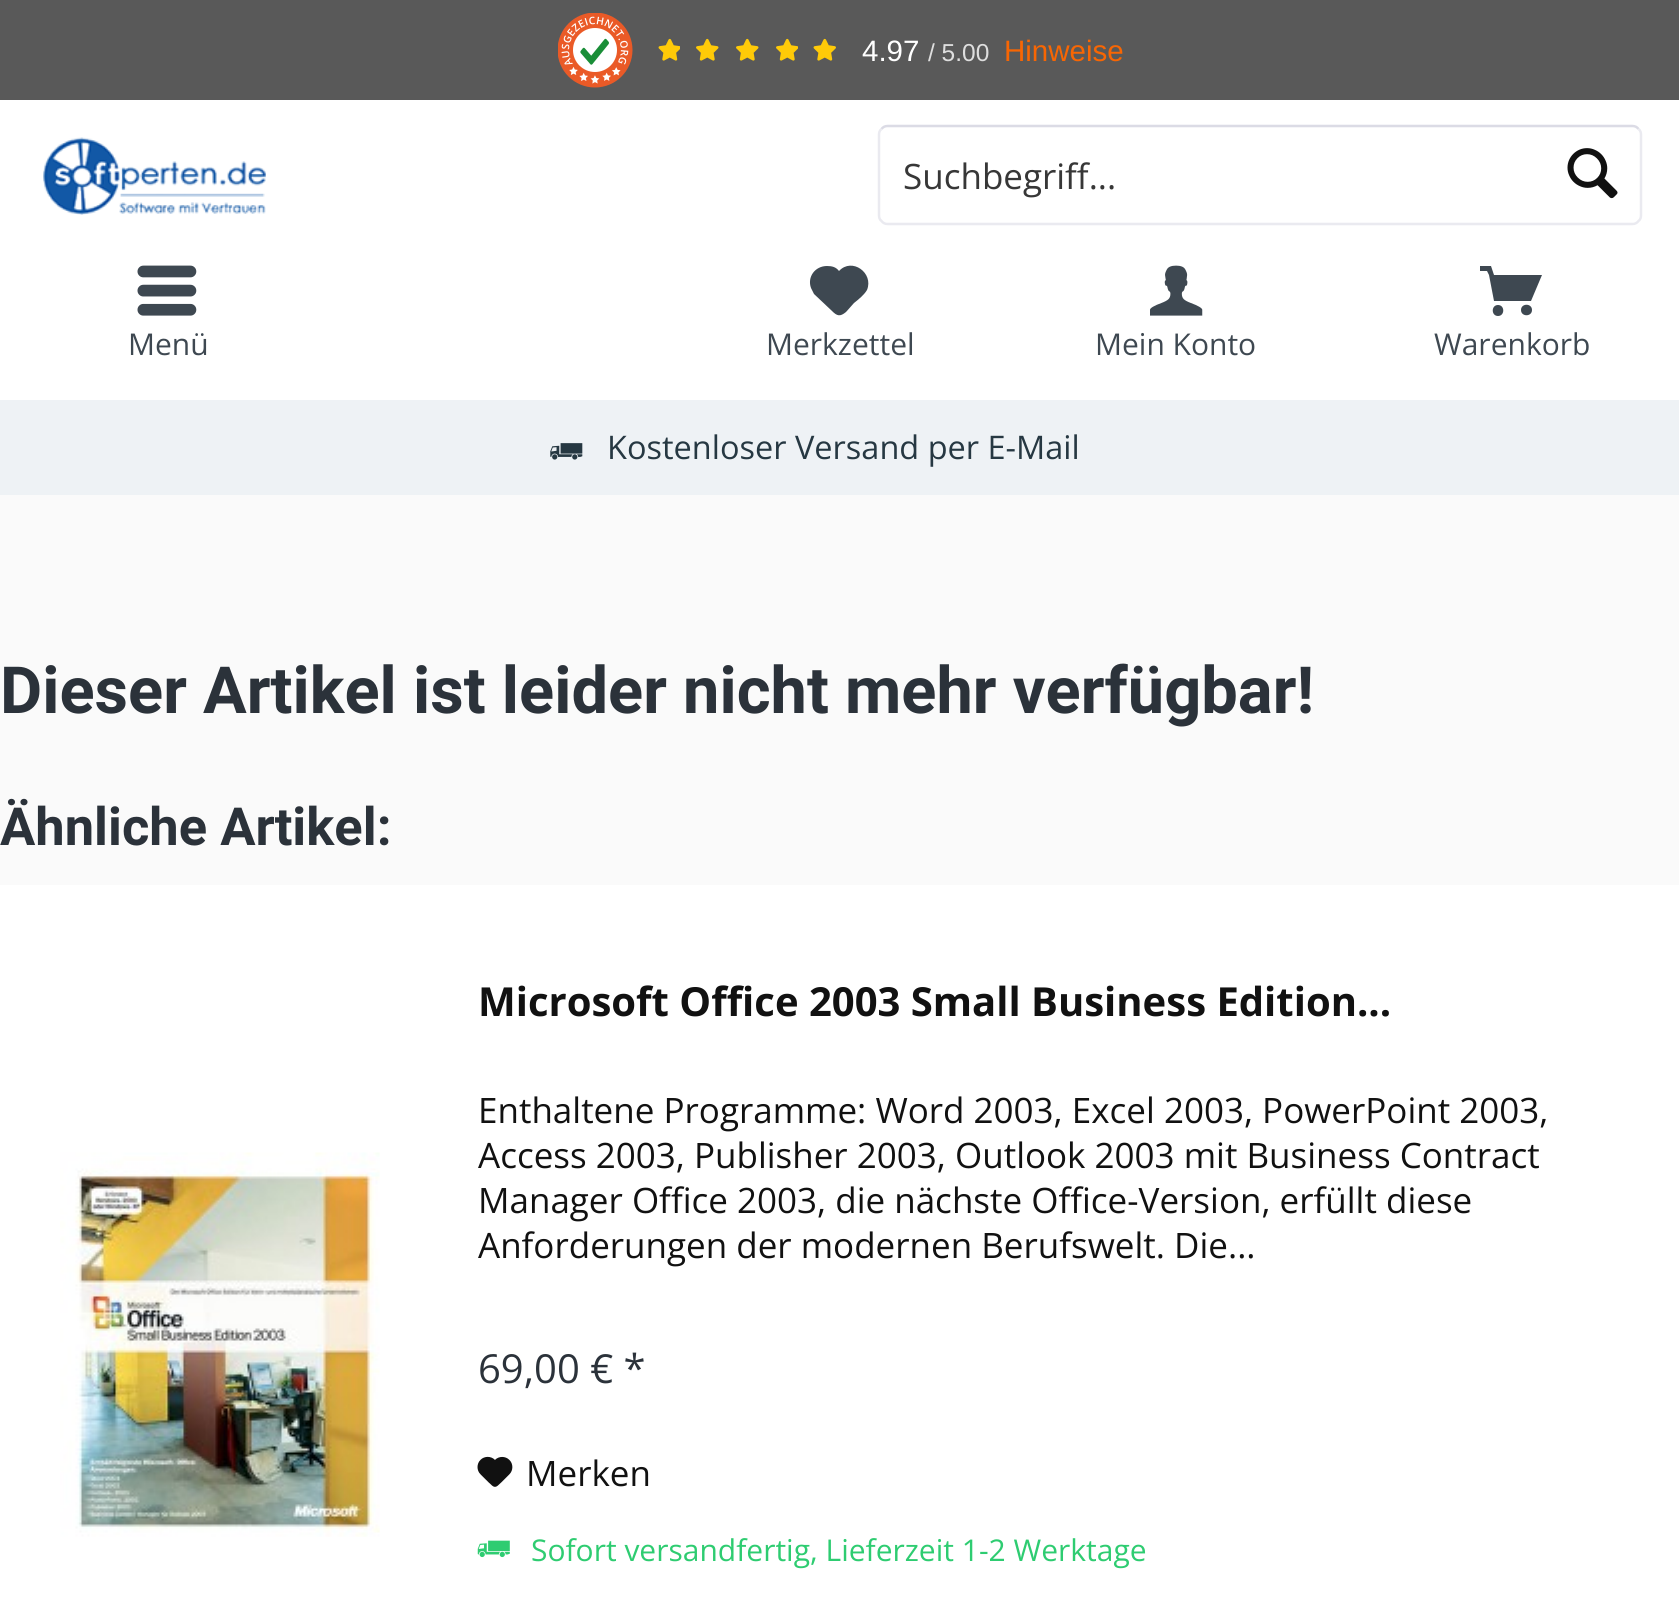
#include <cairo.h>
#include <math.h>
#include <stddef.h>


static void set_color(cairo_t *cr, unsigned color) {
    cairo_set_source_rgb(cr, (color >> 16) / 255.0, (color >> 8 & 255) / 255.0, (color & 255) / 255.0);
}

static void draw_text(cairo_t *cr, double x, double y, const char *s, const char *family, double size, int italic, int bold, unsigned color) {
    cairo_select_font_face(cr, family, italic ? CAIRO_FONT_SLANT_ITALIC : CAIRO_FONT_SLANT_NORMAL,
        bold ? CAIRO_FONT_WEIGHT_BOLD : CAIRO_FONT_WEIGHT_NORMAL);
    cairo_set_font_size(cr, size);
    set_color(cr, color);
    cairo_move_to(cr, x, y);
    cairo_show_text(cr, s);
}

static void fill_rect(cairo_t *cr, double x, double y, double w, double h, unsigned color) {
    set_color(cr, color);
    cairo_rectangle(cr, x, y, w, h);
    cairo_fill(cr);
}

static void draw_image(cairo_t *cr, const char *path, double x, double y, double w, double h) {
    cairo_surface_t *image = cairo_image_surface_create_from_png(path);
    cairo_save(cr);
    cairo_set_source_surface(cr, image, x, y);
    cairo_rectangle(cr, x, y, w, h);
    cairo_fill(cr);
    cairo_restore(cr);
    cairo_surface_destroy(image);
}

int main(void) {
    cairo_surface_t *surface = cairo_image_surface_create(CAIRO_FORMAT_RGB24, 1679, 1613);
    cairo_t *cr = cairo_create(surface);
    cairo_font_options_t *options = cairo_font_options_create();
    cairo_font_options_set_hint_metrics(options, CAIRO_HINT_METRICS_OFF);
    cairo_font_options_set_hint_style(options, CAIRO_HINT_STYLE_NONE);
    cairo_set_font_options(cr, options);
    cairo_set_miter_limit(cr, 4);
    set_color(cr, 0xFAFAFA);
    cairo_paint(cr);
    fill_rect(cr, 0, 0, 1679, 100, 0x595959);
    draw_image(cr, "assets/img1.png", 558, 13, 75, 75);
    draw_image(cr, "assets/img2.png", 658, 38, 22, 23);
    draw_image(cr, "assets/img3.png", 696, 38, 23, 23);
    draw_image(cr, "assets/img3.png", 736, 38, 23, 23);
    draw_image(cr, "assets/img4.png", 776, 38, 22, 23);
    draw_image(cr, "assets/img5.png", 813, 38, 23, 23);
    draw_text(cr, 862, 61, "4.97", "Liberation Sans", 29.5, 0, 0, 0xFFFFFF);
    draw_text(cr, 928, 61, "/ 5.00", "Liberation Sans", 24.5, 0, 0, 0xDEDEDE);
    draw_text(cr, 1004, 61, "Hinweise", "Liberation Sans", 29.5, 0, 0, 0xF86603);
    fill_rect(cr, 0, 100, 1679, 300, 0xFFFFFF);
    cairo_new_path(cr);
    cairo_move_to(cr, 881.5, 129);
    cairo_curve_to(cr, 883, 127, 885, 126, 887.5, 126);
    cairo_line_to(cr, 1632.5, 126);
    cairo_curve_to(cr, 1635, 126, 1637, 127, 1638.5, 129);
    set_color(cr, 0xDBDBE5);
    cairo_set_line_width(cr, 2.5);
    cairo_stroke(cr);
    cairo_new_path(cr);
    cairo_move_to(cr, 1638.5, 129);
    cairo_curve_to(cr, 1640.5, 130.5, 1641, 132.5, 1641, 135);
    cairo_line_to(cr, 1641, 215);
    cairo_curve_to(cr, 1641, 217.5, 1640.5, 219.5, 1638.5, 221);
    cairo_curve_to(cr, 1637, 223, 1635, 224, 1632.5, 224);
    cairo_line_to(cr, 887.5, 224);
    cairo_curve_to(cr, 885, 224, 883, 223, 881.5, 221);
    cairo_curve_to(cr, 879.5, 219.5, 879, 217.5, 879, 215);
    cairo_line_to(cr, 879, 135);
    cairo_curve_to(cr, 879, 132.5, 879.5, 130.5, 881.5, 129);
    set_color(cr, 0xEAEAF0);
    cairo_stroke(cr);
    draw_text(cr, 903, 189, "Suchbegriff...", "Open Sans", 35, 0, 0, 0x373737);
    draw_image(cr, "assets/img6.png", 1567, 148, 51, 51);
    draw_image(cr, "assets/img7.png", 43, 137, 223, 78);
    draw_image(cr, "assets/img8.png", 137, 265, 60, 51);
    draw_text(cr, 128, 355, "Menü", "Open Sans", 30, 0, 0, 0x3E4851);
    cairo_new_path(cr);
    cairo_move_to(cr, 827, 266);
    cairo_curve_to(cr, 815, 266, 807, 277, 811, 288);
    cairo_curve_to(cr, 812, 290, 813, 292, 814, 294);
    cairo_line_to(cr, 832, 311);
    cairo_curve_to(cr, 837, 316, 840, 317, 846, 312);
    cairo_line_to(cr, 854, 303);
    cairo_curve_to(cr, 859, 299, 864, 295, 867, 290);
    cairo_curve_to(cr, 874, 273, 852, 257, 839, 271);
    cairo_curve_to(cr, 836, 267, 832, 266, 827, 266);
    cairo_close_path(cr);
    cairo_fill(cr);
    draw_text(cr, 766, 355, "Merkzettel", "Open Sans", 30, 0, 0, 0x3E4851);
    draw_image(cr, "assets/img9.png", 1150, 265, 53, 51);
    draw_text(cr, 1095, 355, "Mein Konto", "Open Sans", 30, 0, 0, 0x3E4851);
    cairo_new_path(cr);
    cairo_move_to(cr, 1494, 301);
    cairo_line_to(cr, 1531, 301);
    cairo_line_to(cr, 1542, 275);
    cairo_line_to(cr, 1494, 275);
    cairo_line_to(cr, 1491, 266);
    cairo_line_to(cr, 1480, 266);
    cairo_line_to(cr, 1480, 271);
    cairo_line_to(cr, 1487, 271);
    cairo_line_to(cr, 1489, 275);
    cairo_close_path(cr);
    cairo_move_to(cr, 1498, 305);
    cairo_curve_to(cr, 1491, 305, 1491, 316, 1498, 316);
    cairo_curve_to(cr, 1505, 316, 1505, 305, 1498, 305);
    cairo_close_path(cr);
    cairo_move_to(cr, 1532, 310);
    cairo_curve_to(cr, 1532, 317, 1521, 317, 1521, 310);
    cairo_curve_to(cr, 1521, 303, 1532, 303, 1532, 310);
    cairo_close_path(cr);
    cairo_fill(cr);
    draw_text(cr, 1434, 355, "Warenkorb", "Open Sans", 30, 0, 0, 0x3E4851);
    fill_rect(cr, 0, 400, 1679, 95, 0xEEF2F5);
    draw_image(cr, "assets/img10.png", 550, 443, 33, 17);
    draw_text(cr, 607, 459, "Kostenloser Versand per E-Mail", "Open Sans", 32.5, 0, 0, 0x263842);
    draw_text(cr, 0, 713, "Dieser Artikel ist leider nicht mehr verfügbar!", "Roboto", 65, 0, 1, 0x2B323A);
    draw_text(cr, 0, 845, "Ähnliche Artikel:", "Roboto", 52.5, 0, 1, 0x2B323A);
    fill_rect(cr, 3, 888, 1675, 725, 0xFFFFFF);
    fill_rect(cr, 0, 885, 1679, 3, 0xFFFFFF);
    fill_rect(cr, 1678, 885, 1, 728, 0xFFFFFF);
    fill_rect(cr, 0, 885, 3, 728, 0xFFFFFF);
    draw_text(cr, 478, 1016, "Microsoft Office 2003 Small Business Edition...", "Open Sans", 40, 0, 1, 0x111111);
    draw_image(cr, "assets/img11.png", 60, 1152, 320, 385);
    draw_text(cr, 478, 1123, "Enthaltene Programme: Word 2003, Excel 2003, PowerPoint 2003,", "Open Sans", 35, 0, 0, 0x111111);
    draw_text(cr, 478, 1168, "Access 2003, Publisher 2003, Outlook 2003 mit Business Contract", "Open Sans", 35, 0, 0, 0x111111);
    draw_text(cr, 478, 1213, "Manager Office 2003, die nächste Office-Version, erfüllt diese", "Open Sans", 35, 0, 0, 0x111111);
    draw_text(cr, 478, 1258, "Anforderungen der modernen Berufswelt. Die...", "Open Sans", 35, 0, 0, 0x111111);
    draw_text(cr, 478, 1383, "69,00 € *", "Open Sans", 40, 0, 0, 0x2B323A);
    draw_image(cr, "assets/img12.png", 477, 1456, 36, 31);
    draw_text(cr, 526, 1486, "Merken", "Open Sans", 35, 0, 0, 0x111111);
    draw_image(cr, "assets/img13.png", 477, 1540, 33, 18);
    draw_text(cr, 531, 1561, "Sofort versandfertig, Lieferzeit 1-2 Werktage", "Open Sans", 30, 0, 0, 0x2ECC71);
    cairo_surface_write_to_png(surface, "output.png");
    cairo_font_options_destroy(options);
    cairo_destroy(cr);
    cairo_surface_destroy(surface);
    return 0;
}
